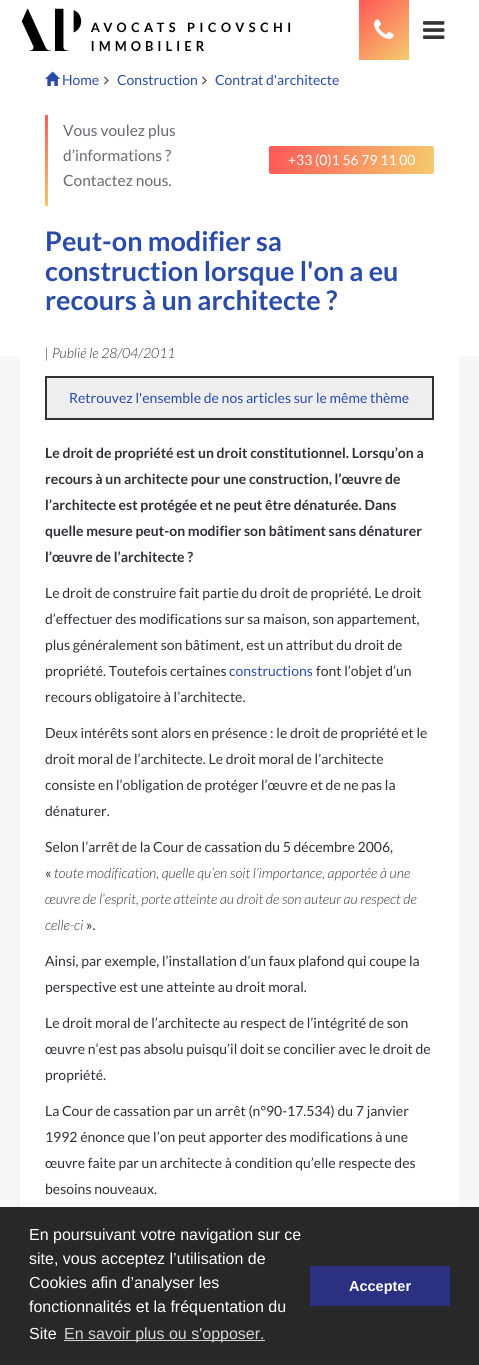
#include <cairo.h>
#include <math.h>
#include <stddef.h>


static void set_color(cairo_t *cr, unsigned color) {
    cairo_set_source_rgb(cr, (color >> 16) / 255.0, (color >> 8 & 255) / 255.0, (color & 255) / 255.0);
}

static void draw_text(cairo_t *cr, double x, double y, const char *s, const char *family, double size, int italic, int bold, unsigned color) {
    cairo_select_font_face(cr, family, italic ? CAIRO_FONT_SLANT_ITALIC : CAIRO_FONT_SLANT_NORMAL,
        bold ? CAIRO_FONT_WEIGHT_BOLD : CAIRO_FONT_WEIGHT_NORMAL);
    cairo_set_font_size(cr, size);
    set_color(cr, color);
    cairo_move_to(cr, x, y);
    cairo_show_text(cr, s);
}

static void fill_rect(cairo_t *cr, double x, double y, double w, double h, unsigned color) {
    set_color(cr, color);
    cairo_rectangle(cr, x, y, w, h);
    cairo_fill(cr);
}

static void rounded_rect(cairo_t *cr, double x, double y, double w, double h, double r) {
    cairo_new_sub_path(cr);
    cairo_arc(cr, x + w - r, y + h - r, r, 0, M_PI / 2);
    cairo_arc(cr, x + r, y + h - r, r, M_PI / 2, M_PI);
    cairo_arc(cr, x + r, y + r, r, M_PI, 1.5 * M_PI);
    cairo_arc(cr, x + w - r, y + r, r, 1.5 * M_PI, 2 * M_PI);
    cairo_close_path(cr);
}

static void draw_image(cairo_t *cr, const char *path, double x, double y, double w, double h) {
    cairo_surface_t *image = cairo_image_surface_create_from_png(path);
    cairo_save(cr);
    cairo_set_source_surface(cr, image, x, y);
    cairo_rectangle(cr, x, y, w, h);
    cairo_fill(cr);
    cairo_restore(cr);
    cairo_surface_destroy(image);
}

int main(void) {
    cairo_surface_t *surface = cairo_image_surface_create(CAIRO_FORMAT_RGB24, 479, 1365);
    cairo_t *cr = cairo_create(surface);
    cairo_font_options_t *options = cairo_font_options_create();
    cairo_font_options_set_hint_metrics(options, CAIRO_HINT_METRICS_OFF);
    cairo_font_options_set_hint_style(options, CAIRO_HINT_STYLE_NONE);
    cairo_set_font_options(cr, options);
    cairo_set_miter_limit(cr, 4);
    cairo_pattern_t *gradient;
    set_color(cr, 0xF7F7F7);
    cairo_paint(cr);
    fill_rect(cr, 0, 0, 479, 356, 0xFFFFFF);
    draw_image(cr, "assets/img1.png", 21, 8, 270, 43);
    gradient = cairo_pattern_create_linear(359, 0.1, 409, 60);
    cairo_pattern_add_color_stop_rgba(gradient, 0, 1, 0.345, 0.345, 1);
    cairo_pattern_add_color_stop_rgba(gradient, 1, 0.961, 0.796, 0.424, 1);
    cairo_set_source(cr, gradient);
    cairo_pattern_destroy(gradient);
    cairo_rectangle(cr, 359, 0, 50, 60);
    cairo_fill(cr);
    draw_image(cr, "assets/img2.png", 374, 19, 20, 20);
    draw_image(cr, "assets/img3.png", 423, 21, 22, 18);
    draw_image(cr, "assets/img4.png", 45, 71, 15, 15);
    draw_text(cr, 62, 85, "Home", "Lato", 14, 0, 0, 0x2A4CA8);
    draw_image(cr, "assets/img5.png", 104, 76, 5, 9);
    draw_text(cr, 117, 85, "Construction", "Lato", 14, 0, 0, 0x2A4CA8);
    draw_image(cr, "assets/img5.png", 202, 76, 5, 9);
    draw_text(cr, 215, 85, "Contrat d'architecte", "Lato", 14, 0, 0, 0x2A4CA8);
    fill_rect(cr, 20, 356, 439, 851, 0xFFFFFF);
    draw_image(cr, "assets/img6.png", 45, 115, 3, 91);
    draw_text(cr, 63, 136, "Vous voulez plus", "Lato", 15.5, 0, 0, 0x696970);
    draw_text(cr, 63, 161, "d’informations ?", "Lato", 15.5, 0, 0, 0x696970);
    draw_text(cr, 63, 186, "Contactez nous.", "Lato", 15.5, 0, 0, 0x696970);
    gradient = cairo_pattern_create_linear(270, 143, 433, 177);
    cairo_pattern_add_color_stop_rgba(gradient, 0, 1, 0.345, 0.345, 1);
    cairo_pattern_add_color_stop_rgba(gradient, 1, 0.961, 0.796, 0.424, 1);
    cairo_set_source(cr, gradient);
    cairo_pattern_destroy(gradient);
    rounded_rect(cr, 269, 146, 165, 28, 2);
    cairo_fill(cr);
    draw_text(cr, 288, 165, "+33 (0)1 56 79 11 00", "Lato", 14, 0, 0, 0xFFFFFF);
    draw_text(cr, 45, 251, "Peut-on modifier sa", "Lato", 27, 0, 1, 0x2A4CA8);
    draw_text(cr, 45, 281, "construction lorsque l'on a eu", "Lato", 27, 0, 1, 0x2A4CA8);
    draw_text(cr, 45, 310, "recours à un architecte ?", "Lato", 27, 0, 1, 0x2A4CA8);
    draw_text(cr, 45, 358, "| Publié le 28/04/2011", "Lato Light", 14, 1, 0, 0x2F2F38);
    set_color(cr, 0xEEEEEE);
    cairo_rectangle(cr, 46, 377, 387, 42);
    cairo_fill_preserve(cr);
    set_color(cr, 0x333333);
    cairo_stroke(cr);
    draw_text(cr, 69, 403, "Retrouvez l'ensemble de nos articles sur le même thème", "Lato", 14, 0, 0, 0x2A4CA8);
    draw_text(cr, 45, 458, "Le droit de propriété est un droit constitutionnel. Lorsqu’on a", "Lato", 14, 0, 1, 0x2F2F38);
    draw_text(cr, 45, 484, "recours à un architecte pour une construction, l’œuvre de", "Lato", 14, 0, 1, 0x2F2F38);
    draw_text(cr, 45, 510, "l’architecte est protégée et ne peut être dénaturée. Dans", "Lato", 14, 0, 1, 0x2F2F38);
    draw_text(cr, 45, 536, "quelle mesure peut-on modifier son bâtiment sans dénaturer", "Lato", 14, 0, 1, 0x2F2F38);
    draw_text(cr, 45, 562, "l’œuvre de l’architecte ?", "Lato", 14, 0, 1, 0x2F2F38);
    draw_text(cr, 45, 598, "Le droit de construire fait partie du droit de propriété. Le droit", "Lato", 14, 0, 0, 0x2F2F38);
    draw_text(cr, 45, 624, "d’effectuer des modifications sur sa maison, son appartement,", "Lato", 14, 0, 0, 0x2F2F38);
    draw_text(cr, 45, 650, "plus généralement son bâtiment, est un attribut du droit de", "Lato", 14, 0, 0, 0x2F2F38);
    draw_text(cr, 45, 676, "propriété. Toutefois certaines", "Lato", 14, 0, 0, 0x2F2F38);
    draw_text(cr, 229, 676, "constructions", "Lato", 14, 0, 0, 0x2A4CA8);
    draw_text(cr, 316, 676, "font l’objet d’un", "Lato", 14, 0, 0, 0x2F2F38);
    draw_text(cr, 45, 702, "recours obligatoire à l’architecte.", "Lato", 14, 0, 0, 0x2F2F38);
    draw_text(cr, 45, 738, "Deux intérêts sont alors en présence : le droit de propriété et le", "Lato", 14, 0, 0, 0x2F2F38);
    draw_text(cr, 45, 764, "droit moral de l’architecte. Le droit moral de l’architecte", "Lato", 14, 0, 0, 0x2F2F38);
    draw_text(cr, 45, 790, "consiste en l’obligation de protéger l’œuvre et de ne pas la", "Lato", 14, 0, 0, 0x2F2F38);
    draw_text(cr, 45, 816, "dénaturer.", "Lato", 14, 0, 0, 0x2F2F38);
    draw_text(cr, 45, 852, "Selon l’arrêt de la Cour de cassation du 5 décembre 2006,", "Lato", 14, 0, 0, 0x2F2F38);
    draw_text(cr, 45, 878, "«", "Lato", 14, 0, 0, 0x2F2F38);
    draw_text(cr, 54, 878, "toute modification, quelle qu’en soit l’importance, apportée à une", "Lato Light", 14, 1, 0, 0x2F2F38);
    draw_text(cr, 45, 904, "œuvre de l’esprit, porte atteinte au droit de son auteur au respect de", "Lato Light", 14, 1, 0, 0x2F2F38);
    draw_text(cr, 45, 930, "celle-ci", "Lato Light", 14, 1, 0, 0x2F2F38);
    draw_text(cr, 86, 930, "».", "Lato", 14, 0, 0, 0x2F2F38);
    draw_text(cr, 45, 966, "Ainsi, par exemple, l’installation d’un faux plafond qui coupe la", "Lato", 14, 0, 0, 0x2F2F38);
    draw_text(cr, 45, 992, "perspective est une atteinte au droit moral.", "Lato", 14, 0, 0, 0x2F2F38);
    draw_text(cr, 45, 1028, "Le droit moral de l’architecte au respect de l’intégrité de son", "Lato", 14, 0, 0, 0x2F2F38);
    draw_text(cr, 45, 1054, "œuvre n’est pas absolu puisqu’il doit se concilier avec le droit de", "Lato", 14, 0, 0, 0x2F2F38);
    draw_text(cr, 45, 1080, "propriété.", "Lato", 14, 0, 0, 0x2F2F38);
    draw_text(cr, 45, 1116, "La Cour de cassation par un arrêt (n°90-17.534) du 7 janvier", "Lato", 14, 0, 0, 0x2F2F38);
    draw_text(cr, 45, 1142, "1992 énonce que l’on peut apporter des modifications à une", "Lato", 14, 0, 0, 0x2F2F38);
    draw_text(cr, 45, 1168, "œuvre faite par un architecte à condition qu’elle respecte des", "Lato", 14, 0, 0, 0x2F2F38);
    draw_text(cr, 45, 1194, "besoins nouveaux.", "Lato", 14, 0, 0, 0x2F2F38);
    fill_rect(cr, 0, 1207, 479, 158, 0x282828);
    draw_text(cr, 29, 1240, "En poursuivant votre navigation sur ce", "Liberation Sans", 16, 0, 0, 0xFFFFFF);
    draw_text(cr, 29, 1264, "site, vous acceptez l’utilisation de", "Liberation Sans", 16, 0, 0, 0xFFFFFF);
    draw_text(cr, 29, 1288, "Cookies afin d’analyser les", "Liberation Sans", 16, 0, 0, 0xFFFFFF);
    draw_text(cr, 29, 1312, "fonctionnalités et la fréquentation du", "Liberation Sans", 16, 0, 0, 0xFFFFFF);
    draw_text(cr, 29, 1339, "Site", "Liberation Sans", 16, 0, 0, 0xFFFFFF);
    fill_rect(cr, 64, 1340, 201, 1, 0xD4D4D4);
    draw_text(cr, 64, 1339, "En savoir plus ou s'opposer.", "Liberation Sans", 16, 0, 0, 0xD4D4D4);
    fill_rect(cr, 310, 1266, 140, 40, 0x2B3080);
    draw_text(cr, 349, 1291, "Accepter", "Liberation Sans", 14.5, 0, 1, 0xFFFFFF);
    cairo_surface_write_to_png(surface, "output.png");
    cairo_font_options_destroy(options);
    cairo_destroy(cr);
    cairo_surface_destroy(surface);
    return 0;
}
